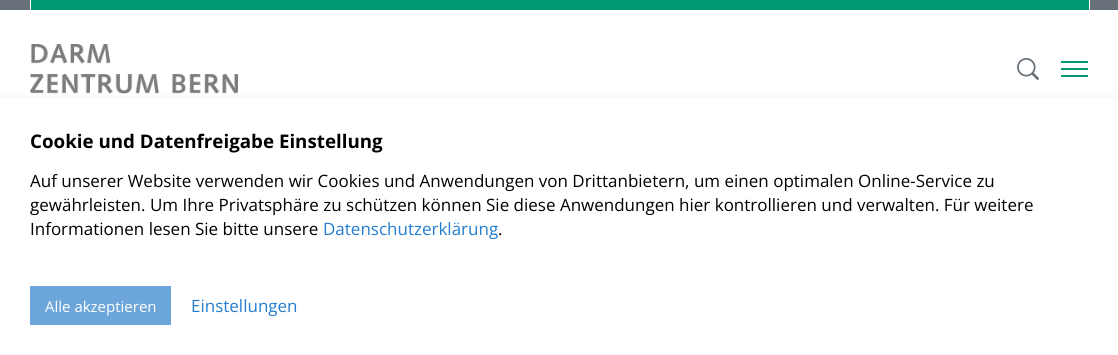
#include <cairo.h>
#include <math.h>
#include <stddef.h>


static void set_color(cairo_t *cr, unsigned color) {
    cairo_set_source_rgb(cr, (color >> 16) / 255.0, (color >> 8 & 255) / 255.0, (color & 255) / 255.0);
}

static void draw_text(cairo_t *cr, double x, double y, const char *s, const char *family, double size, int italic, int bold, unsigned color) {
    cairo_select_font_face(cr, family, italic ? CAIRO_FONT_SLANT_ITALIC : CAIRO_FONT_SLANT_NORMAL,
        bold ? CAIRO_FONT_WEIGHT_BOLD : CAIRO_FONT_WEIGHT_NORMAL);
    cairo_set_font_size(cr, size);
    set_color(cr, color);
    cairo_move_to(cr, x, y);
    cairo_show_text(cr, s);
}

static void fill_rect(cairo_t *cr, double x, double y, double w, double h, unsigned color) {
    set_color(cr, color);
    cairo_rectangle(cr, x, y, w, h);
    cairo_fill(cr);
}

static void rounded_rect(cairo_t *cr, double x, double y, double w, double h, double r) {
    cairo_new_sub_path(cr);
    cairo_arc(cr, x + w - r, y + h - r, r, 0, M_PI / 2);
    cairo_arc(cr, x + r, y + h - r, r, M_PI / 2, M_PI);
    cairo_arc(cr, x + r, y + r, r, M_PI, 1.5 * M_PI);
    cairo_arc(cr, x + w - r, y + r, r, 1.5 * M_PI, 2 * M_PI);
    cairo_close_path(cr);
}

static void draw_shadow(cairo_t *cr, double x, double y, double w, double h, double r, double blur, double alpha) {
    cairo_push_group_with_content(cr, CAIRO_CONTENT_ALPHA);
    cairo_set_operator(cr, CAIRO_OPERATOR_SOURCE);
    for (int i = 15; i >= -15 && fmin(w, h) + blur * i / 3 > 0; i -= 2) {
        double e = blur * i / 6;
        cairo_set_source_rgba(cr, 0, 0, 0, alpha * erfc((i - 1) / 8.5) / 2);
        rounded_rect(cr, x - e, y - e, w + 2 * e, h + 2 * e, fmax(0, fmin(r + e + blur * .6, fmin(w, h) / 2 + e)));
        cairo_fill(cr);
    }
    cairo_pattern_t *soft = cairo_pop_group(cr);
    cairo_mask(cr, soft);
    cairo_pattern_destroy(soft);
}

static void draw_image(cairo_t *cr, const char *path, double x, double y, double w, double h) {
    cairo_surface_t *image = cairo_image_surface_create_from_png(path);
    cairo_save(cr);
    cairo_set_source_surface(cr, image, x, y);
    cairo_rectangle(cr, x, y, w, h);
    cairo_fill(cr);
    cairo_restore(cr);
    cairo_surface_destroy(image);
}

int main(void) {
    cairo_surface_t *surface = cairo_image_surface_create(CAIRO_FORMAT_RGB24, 1118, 355);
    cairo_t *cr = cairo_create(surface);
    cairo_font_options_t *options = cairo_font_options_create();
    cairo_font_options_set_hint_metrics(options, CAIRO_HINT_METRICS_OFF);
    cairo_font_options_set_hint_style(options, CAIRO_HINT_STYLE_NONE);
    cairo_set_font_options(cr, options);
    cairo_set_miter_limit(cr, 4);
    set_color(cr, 0xFFFFFF);
    cairo_paint(cr);
    fill_rect(cr, 0, 0, 1118, 10, 0x677078);
    fill_rect(cr, 31, 0, 1058, 10, 0x009870);
    fill_rect(cr, 1089, 0, 1, 10, 0xFFFFFF);
    fill_rect(cr, 30, 0, 1, 10, 0xFFFFFF);
    draw_image(cr, "assets/img1.png", 30, 44, 208, 50);
    draw_image(cr, "assets/img2.png", 1017, 58, 22, 22);
    fill_rect(cr, 1061, 61, 27, 2, 0x009870);
    fill_rect(cr, 1061, 68, 27, 2, 0x009870);
    fill_rect(cr, 1061, 75, 27, 2, 0x009870);
    set_color(cr, 0x000000);
    draw_shadow(cr, 0, 103, 1118, 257, 0, 5, 0.2);
    fill_rect(cr, 0, 98, 1118, 257, 0xFFFFFF);
    draw_text(cr, 30, 148, "Cookie und Datenfreigabe Einstellung", "Open Sans", 18.75, 0, 1, 0x000000);
    draw_text(cr, 30, 187, "Auf unserer Website verwenden wir Cookies und Anwendungen von Drittanbietern, um einen optimalen Online-Service zu", "Open Sans", 17, 0, 0, 0x000000);
    draw_text(cr, 30, 211, "gewährleisten. Um Ihre Privatsphäre zu schützen können Sie diese Anwendungen hier kontrollieren und verwalten. Für weitere", "Open Sans", 17, 0, 0, 0x000000);
    draw_text(cr, 30, 235, "Informationen lesen Sie bitte unsere", "Open Sans", 17, 0, 0, 0x000000);
    draw_text(cr, 323, 235, "Datenschutzerklärung", "Open Sans", 17, 0, 0, 0x247DCE);
    draw_text(cr, 498, 235, ".", "Open Sans", 17, 0, 0, 0x000000);
    fill_rect(cr, 30, 286, 141, 39, 0x6CA5DA);
    draw_text(cr, 45, 312, "Alle akzeptieren", "Open Sans", 15, 0, 0, 0xFFFFFF);
    draw_text(cr, 191, 312, "Einstellungen", "Open Sans", 17, 0, 0, 0x247DCE);
    cairo_surface_write_to_png(surface, "output.png");
    cairo_font_options_destroy(options);
    cairo_destroy(cr);
    cairo_surface_destroy(surface);
    return 0;
}
